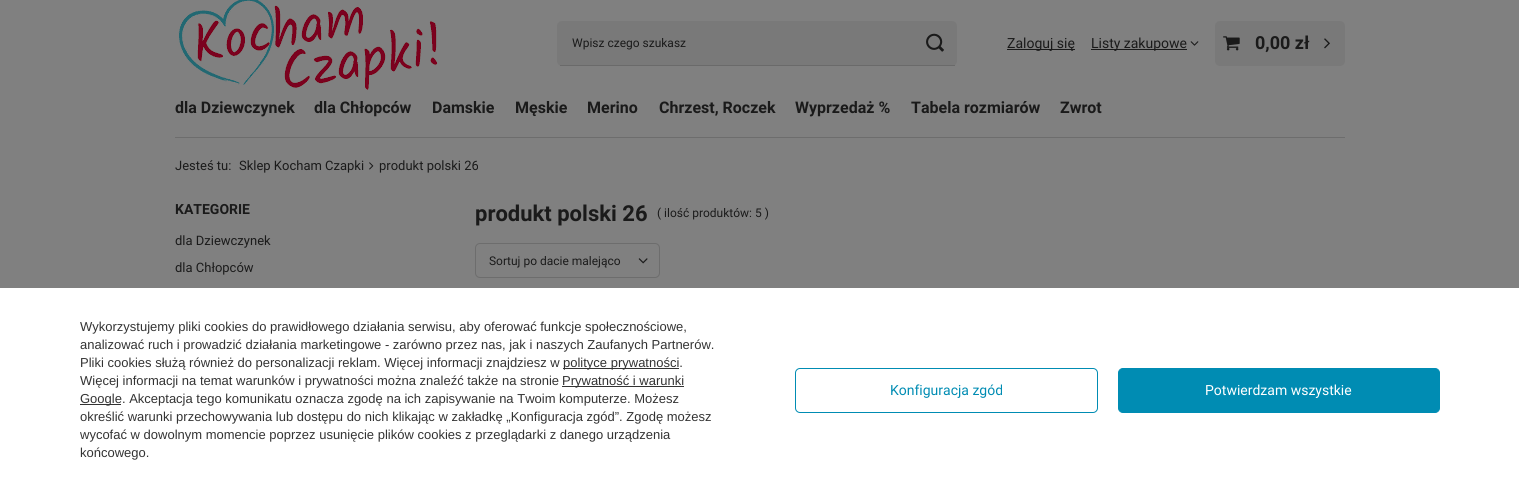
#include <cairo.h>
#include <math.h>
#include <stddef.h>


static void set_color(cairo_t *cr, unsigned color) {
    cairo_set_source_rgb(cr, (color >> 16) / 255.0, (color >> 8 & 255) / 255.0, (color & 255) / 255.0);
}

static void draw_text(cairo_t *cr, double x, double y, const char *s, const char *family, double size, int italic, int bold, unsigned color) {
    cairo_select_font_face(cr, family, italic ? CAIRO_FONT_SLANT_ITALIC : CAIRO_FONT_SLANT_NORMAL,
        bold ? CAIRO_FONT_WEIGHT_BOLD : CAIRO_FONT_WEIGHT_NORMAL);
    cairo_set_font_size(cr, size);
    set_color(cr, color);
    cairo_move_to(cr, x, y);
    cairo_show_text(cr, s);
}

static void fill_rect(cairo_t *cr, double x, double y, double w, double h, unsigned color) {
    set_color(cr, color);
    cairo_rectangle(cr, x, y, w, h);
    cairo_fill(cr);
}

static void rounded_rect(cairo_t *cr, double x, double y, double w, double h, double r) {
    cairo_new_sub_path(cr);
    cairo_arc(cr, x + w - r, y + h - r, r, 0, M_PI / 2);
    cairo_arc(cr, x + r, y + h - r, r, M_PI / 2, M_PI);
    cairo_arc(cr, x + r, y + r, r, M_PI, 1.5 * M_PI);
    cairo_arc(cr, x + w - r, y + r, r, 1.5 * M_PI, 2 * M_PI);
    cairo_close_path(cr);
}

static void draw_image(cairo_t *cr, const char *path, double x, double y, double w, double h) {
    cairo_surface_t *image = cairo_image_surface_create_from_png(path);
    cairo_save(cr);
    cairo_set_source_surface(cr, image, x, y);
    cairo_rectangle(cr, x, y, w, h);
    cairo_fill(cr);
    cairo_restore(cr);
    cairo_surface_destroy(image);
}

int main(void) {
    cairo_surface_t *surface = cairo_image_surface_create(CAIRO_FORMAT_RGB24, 1519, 492);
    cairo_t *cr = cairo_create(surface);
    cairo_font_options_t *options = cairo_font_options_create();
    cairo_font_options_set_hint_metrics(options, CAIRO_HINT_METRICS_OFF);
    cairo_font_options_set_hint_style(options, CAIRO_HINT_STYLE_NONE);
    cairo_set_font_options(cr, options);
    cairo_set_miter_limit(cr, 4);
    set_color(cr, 0x808080);
    cairo_paint(cr);
    draw_image(cr, "assets/img1.png", 178, 0, 260, 90);
    set_color(cr, 0x797979);
    rounded_rect(cr, 557, 21, 400, 45, 5);
    cairo_fill(cr);
    fill_rect(cr, 560, 65, 395, 1, 0x6A6A6A);
    draw_text(cr, 572, 47, "Wpisz czego szukasz", "Roboto", 12, 0, 0, 0x1A1A1A);
    draw_image(cr, "assets/img2.png", 926, 33, 18, 19);
    fill_rect(cr, 1007, 49, 68, 1, 0x1A1A1A);
    draw_text(cr, 1007, 48, "Zaloguj się", "Roboto", 14, 0, 0, 0x1A1A1A);
    fill_rect(cr, 1091, 49, 96, 1, 0x1A1A1A);
    draw_text(cr, 1091, 48, "Listy zakupowe", "Roboto", 14, 0, 0, 0x1A1A1A);
    draw_image(cr, "assets/img3.png", 1190, 41, 9, 5);
    set_color(cr, 0x797979);
    rounded_rect(cr, 1215, 21, 130, 45, 5);
    cairo_fill(cr);
    draw_image(cr, "assets/img4.png", 1223, 36, 17, 15);
    draw_text(cr, 1255, 49, "0,00 zł", "Roboto", 18, 0, 1, 0x1A1A1A);
    draw_image(cr, "assets/img5.png", 1324, 38, 6, 11);
    fill_rect(cr, 175, 137, 1170, 1, 0x6D6D6D);
    draw_text(cr, 175, 113, "dla Dziewczynek", "Roboto", 16, 0, 1, 0x1A1A1A);
    draw_text(cr, 314, 113, "dla Chłopców", "Roboto", 16, 0, 1, 0x1A1A1A);
    draw_text(cr, 432, 113, "Damskie", "Roboto", 16, 0, 1, 0x1A1A1A);
    draw_text(cr, 515, 113, "Męskie", "Roboto", 16, 0, 1, 0x1A1A1A);
    draw_text(cr, 587, 113, "Merino", "Roboto", 16, 0, 1, 0x1A1A1A);
    draw_text(cr, 659, 113, "Chrzest, Roczek", "Roboto", 16, 0, 1, 0x1A1A1A);
    draw_text(cr, 795, 113, "Wyprzedaż %", "Roboto", 16, 0, 1, 0x1A1A1A);
    draw_text(cr, 911, 113, "Tabela rozmiarów", "Roboto", 16, 0, 1, 0x1A1A1A);
    draw_text(cr, 1060, 113, "Zwrot", "Roboto", 16, 0, 1, 0x1A1A1A);
    draw_text(cr, 175, 170, "Jesteś tu:", "Roboto", 13, 0, 0, 0x1A1A1A);
    draw_text(cr, 239, 170, "Sklep Kocham Czapki", "Roboto", 13, 0, 0, 0x1A1A1A);
    draw_image(cr, "assets/img6.png", 369, 162, 5, 8);
    draw_text(cr, 379, 170, "produkt polski 26", "Roboto", 13, 0, 0, 0x1A1A1A);
    draw_text(cr, 175, 214, "KATEGORIE", "Roboto", 14, 0, 1, 0x1A1A1A);
    draw_text(cr, 175, 245, "dla Dziewczynek", "Roboto", 13, 0, 0, 0x1A1A1A);
    draw_text(cr, 175, 272, "dla Chłopców", "Roboto", 13, 0, 0, 0x1A1A1A);
    draw_text(cr, 475, 221, "produkt polski 26", "Roboto", 22, 0, 1, 0x1A1A1A);
    draw_text(cr, 657, 217, "( ilość produktów: 5 )", "Roboto", 12, 0, 0, 0x1A1A1A);
    rounded_rect(cr, 475.5, 243.5, 184, 34, 4.5);
    set_color(cr, 0x6D6D6D);
    cairo_set_line_width(cr, 1);
    cairo_stroke(cr);
    draw_text(cr, 489, 265, "Sortuj po dacie malejąco", "Roboto", 12, 0, 0, 0x1A1A1A);
    draw_image(cr, "assets/img7.png", 638, 258, 10, 6);
    fill_rect(cr, 0, 288, 1519, 204, 0xFFFFFF);
    draw_text(cr, 80, 331, "Wykorzystujemy pliki cookies do prawidłowego działania serwisu, aby oferować funkcje społecznościowe,", "Liberation Sans", 13, 0, 0, 0x333333);
    draw_text(cr, 80, 349, "analizować ruch i prowadzić działania marketingowe - zarówno przez nas, jak i naszych Zaufanych Partnerów.", "Liberation Sans", 13, 0, 0, 0x333333);
    draw_text(cr, 80, 367, "Pliki cookies służą również do personalizacji reklam. Więcej informacji znajdziesz w", "Liberation Sans", 13, 0, 0, 0x333333);
    fill_rect(cr, 563, 368, 116, 1, 0x333333);
    draw_text(cr, 563, 367, "polityce prywatności.", "Liberation Sans", 13, 0, 0, 0x333333);
    draw_text(cr, 80, 385, "Więcej informacji na temat warunków i prywatności można znaleźć także na stronie", "Liberation Sans", 13, 0, 0, 0x333333);
    fill_rect(cr, 562, 386, 122, 1, 0x333333);
    draw_text(cr, 562, 385, "Prywatność i warunki", "Liberation Sans", 13, 0, 0, 0x333333);
    fill_rect(cr, 80, 404, 41, 1, 0x333333);
    draw_text(cr, 80, 403, "Google. Akceptacja tego komunikatu oznacza zgodę na ich zapisywanie na Twoim komputerze. Możesz", "Liberation Sans", 13, 0, 0, 0x333333);
    draw_text(cr, 80, 421, "określić warunki przechowywania lub dostępu do nich klikając w zakładkę „Konfiguracja zgód”. Zgodę możesz", "Liberation Sans", 13, 0, 0, 0x333333);
    draw_text(cr, 80, 439, "wycofać w dowolnym momencie poprzez usunięcie plików cookies z przeglądarki z danego urządzenia", "Liberation Sans", 13, 0, 0, 0x333333);
    draw_text(cr, 80, 457, "końcowego.", "Liberation Sans", 13, 0, 0, 0x333333);
    rounded_rect(cr, 795.5, 368.5, 302, 44, 4.5);
    set_color(cr, 0x008CB3);
    cairo_stroke(cr);
    draw_text(cr, 890, 395, "Konfiguracja zgód", "Roboto", 14, 0, 0, 0x008CB3);
    rounded_rect(cr, 1118.5, 368.5, 321, 44, 4.5);
    cairo_fill_preserve(cr);
    cairo_stroke(cr);
    draw_text(cr, 1205, 395, "Potwierdzam wszystkie", "Roboto", 14, 0, 0, 0xFFFFFF);
    cairo_surface_write_to_png(surface, "output.png");
    cairo_font_options_destroy(options);
    cairo_destroy(cr);
    cairo_surface_destroy(surface);
    return 0;
}
